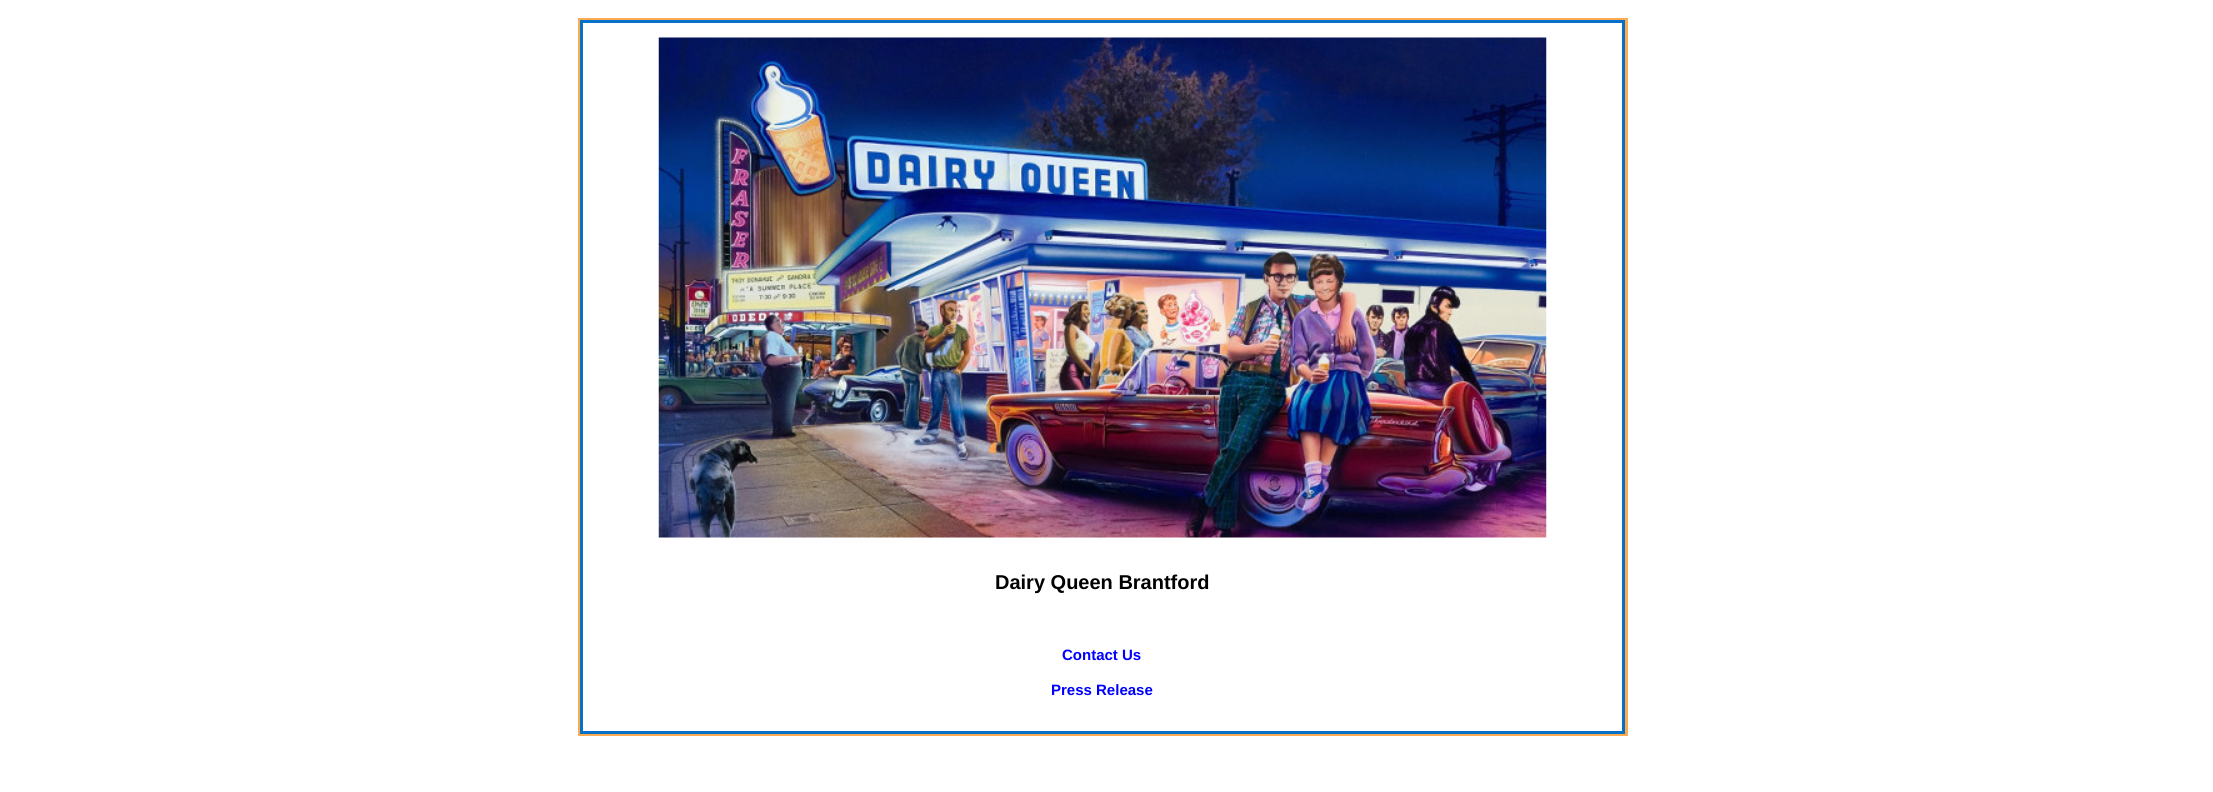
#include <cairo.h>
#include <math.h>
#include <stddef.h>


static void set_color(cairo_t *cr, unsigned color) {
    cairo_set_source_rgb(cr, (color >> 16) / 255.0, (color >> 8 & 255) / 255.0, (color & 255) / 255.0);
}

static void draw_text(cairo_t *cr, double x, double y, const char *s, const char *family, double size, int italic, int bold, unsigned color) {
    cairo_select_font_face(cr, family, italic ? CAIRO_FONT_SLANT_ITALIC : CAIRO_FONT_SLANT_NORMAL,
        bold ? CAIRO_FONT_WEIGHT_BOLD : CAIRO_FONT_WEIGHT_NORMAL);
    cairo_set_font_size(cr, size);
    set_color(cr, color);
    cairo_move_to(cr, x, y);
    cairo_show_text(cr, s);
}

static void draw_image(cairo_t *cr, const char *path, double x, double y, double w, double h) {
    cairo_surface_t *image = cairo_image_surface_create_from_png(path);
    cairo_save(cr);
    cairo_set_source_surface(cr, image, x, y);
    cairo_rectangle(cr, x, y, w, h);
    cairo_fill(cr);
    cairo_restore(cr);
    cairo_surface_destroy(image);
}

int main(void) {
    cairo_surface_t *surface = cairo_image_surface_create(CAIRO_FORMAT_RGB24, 2213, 792);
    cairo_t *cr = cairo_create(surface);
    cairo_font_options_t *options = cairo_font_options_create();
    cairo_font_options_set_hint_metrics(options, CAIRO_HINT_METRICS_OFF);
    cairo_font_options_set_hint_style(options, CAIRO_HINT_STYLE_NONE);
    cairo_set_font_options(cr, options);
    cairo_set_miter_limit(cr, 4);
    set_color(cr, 0xFFFFFF);
    cairo_paint(cr);
    cairo_rectangle(cr, 579.5, 19.5, 1047, 715);
    set_color(cr, 0xFCAB52);
    cairo_set_line_width(cr, 3);
    cairo_stroke(cr);
    cairo_rectangle(cr, 581.5, 21.5, 1042, 711);
    set_color(cr, 0x0470C8);
    cairo_stroke(cr);
    draw_image(cr, "assets/img1.png", 658, 37, 889, 501);
    draw_text(cr, 995, 589, "Dairy Queen Brantford", "Liberation Sans", 20, 0, 1, 0x000000);
    draw_text(cr, 1062, 660, "Contact Us", "Liberation Sans", 15, 0, 1, 0x0000FF);
    draw_text(cr, 1051, 695, "Press Release", "Liberation Sans", 15, 0, 1, 0x0000FF);
    cairo_surface_write_to_png(surface, "output.png");
    cairo_font_options_destroy(options);
    cairo_destroy(cr);
    cairo_surface_destroy(surface);
    return 0;
}
